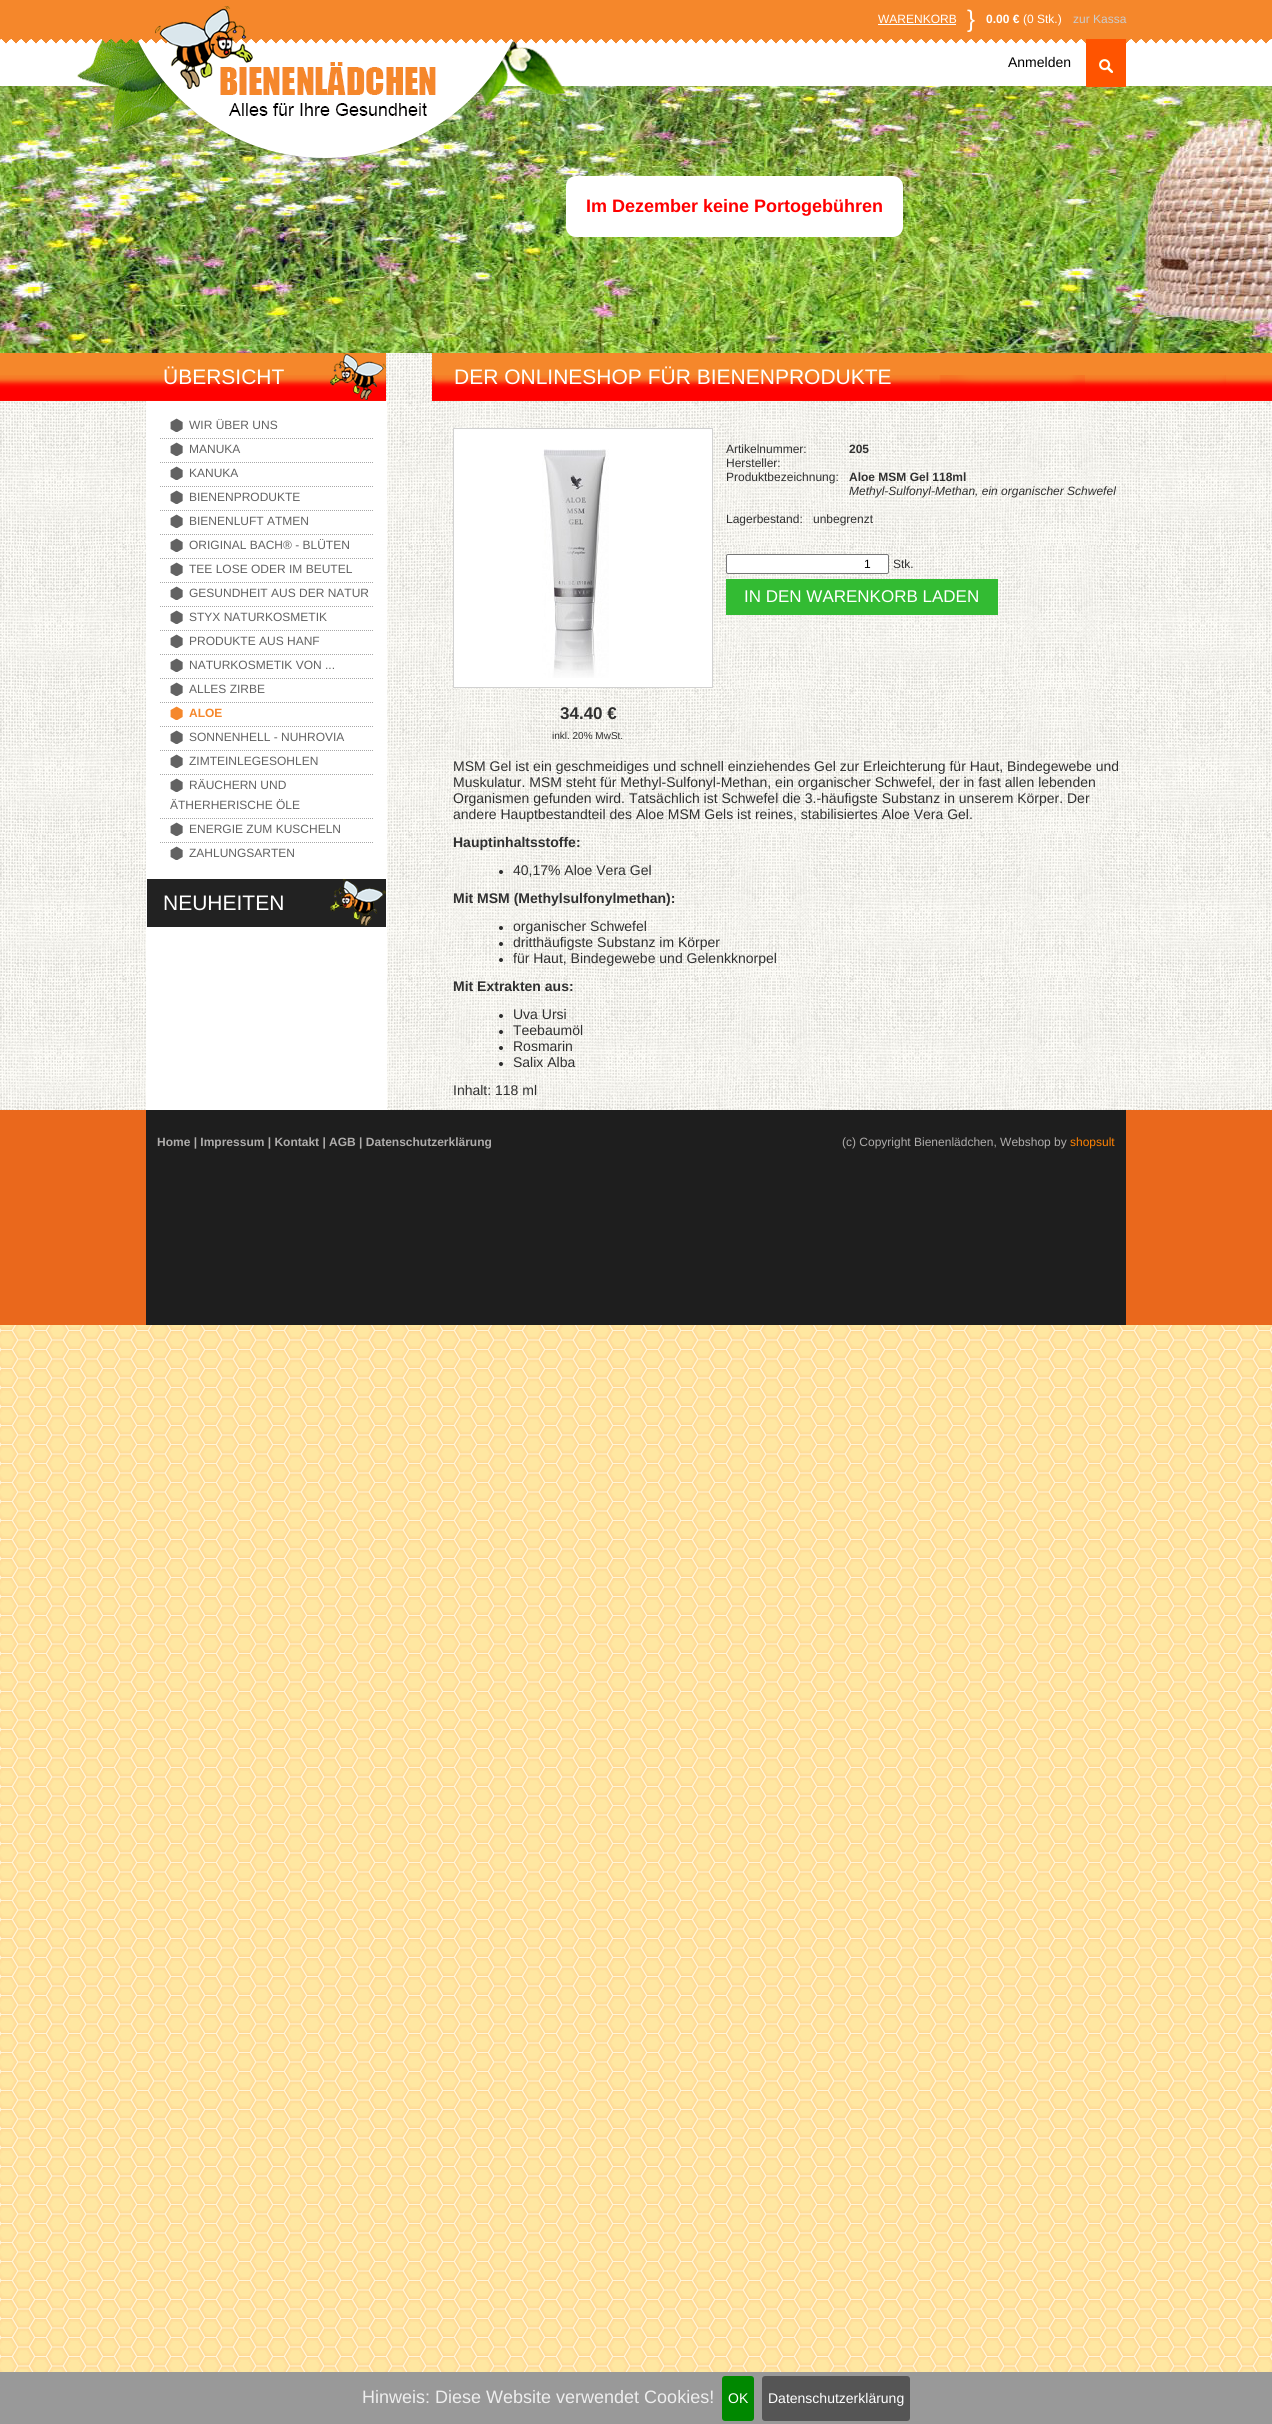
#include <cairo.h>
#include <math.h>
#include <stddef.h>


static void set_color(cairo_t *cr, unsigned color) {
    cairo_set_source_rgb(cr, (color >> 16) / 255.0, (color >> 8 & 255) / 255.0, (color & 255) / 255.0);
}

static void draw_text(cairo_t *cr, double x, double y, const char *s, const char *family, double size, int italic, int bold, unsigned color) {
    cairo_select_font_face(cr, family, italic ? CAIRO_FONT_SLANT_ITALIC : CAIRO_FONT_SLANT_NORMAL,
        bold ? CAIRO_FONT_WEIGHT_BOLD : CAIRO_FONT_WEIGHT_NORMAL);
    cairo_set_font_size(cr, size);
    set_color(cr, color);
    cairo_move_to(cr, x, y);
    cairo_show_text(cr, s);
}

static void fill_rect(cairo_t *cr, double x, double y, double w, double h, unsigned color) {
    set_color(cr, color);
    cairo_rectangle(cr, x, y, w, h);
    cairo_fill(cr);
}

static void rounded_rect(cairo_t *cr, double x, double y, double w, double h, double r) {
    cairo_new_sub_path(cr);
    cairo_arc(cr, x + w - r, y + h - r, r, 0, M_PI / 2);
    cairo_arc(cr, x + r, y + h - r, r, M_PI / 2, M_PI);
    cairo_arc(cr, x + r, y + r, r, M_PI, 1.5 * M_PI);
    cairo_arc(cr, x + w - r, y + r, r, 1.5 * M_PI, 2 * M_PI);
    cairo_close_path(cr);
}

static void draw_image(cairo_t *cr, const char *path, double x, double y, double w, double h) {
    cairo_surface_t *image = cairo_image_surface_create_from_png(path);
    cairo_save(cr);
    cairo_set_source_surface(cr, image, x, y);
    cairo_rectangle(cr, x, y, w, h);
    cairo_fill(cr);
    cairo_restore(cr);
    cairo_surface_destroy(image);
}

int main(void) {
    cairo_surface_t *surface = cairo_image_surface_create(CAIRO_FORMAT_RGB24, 1272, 2424);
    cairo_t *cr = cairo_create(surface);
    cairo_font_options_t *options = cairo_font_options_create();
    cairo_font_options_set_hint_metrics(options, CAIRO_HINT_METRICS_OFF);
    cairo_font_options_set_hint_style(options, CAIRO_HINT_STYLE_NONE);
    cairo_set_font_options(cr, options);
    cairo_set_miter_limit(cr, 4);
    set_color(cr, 0xFFFFFF);
    cairo_paint(cr);
    draw_image(cr, "assets/img1.png", 0, 1325, 1272, 1047);
    draw_image(cr, "assets/img6.png", 0, 86, 1272, 268);
    draw_image(cr, "assets/img4.png", 77, 39, 490, 121);
    draw_image(cr, "assets/img2.png", 0, 0, 1272, 44);
    draw_image(cr, "assets/img3.png", 155, 6, 98, 83);
    draw_text(cr, 878, 23, "WARENKORB", "Liberation Sans", 12, 0, 0, 0xFFFFFF);
    fill_rect(cr, 878, 24, 78, 1, 0xFFFFFF);
    draw_text(cr, 967, 27, "}", "Liberation Sans", 24, 0, 0, 0xFFFFFF);
    draw_text(cr, 986, 23, "0.00 €", "Liberation Sans", 12, 0, 1, 0xFFFFFF);
    draw_text(cr, 1023, 23, "(0 Stk.)", "Liberation Sans", 12, 0, 0, 0xFFFFFF);
    draw_text(cr, 1073, 23, "zur Kassa", "Liberation Sans", 12, 0, 0, 0xCCCCCC);
    draw_text(cr, 1008, 67, "Anmelden", "Liberation Sans", 14, 0, 0, 0x000000);
    draw_image(cr, "assets/img5.png", 1086, 39, 40, 48);
    set_color(cr, 0xFFFFFF);
    rounded_rect(cr, 566, 176, 337, 61, 10);
    cairo_fill(cr);
    draw_text(cr, 586, 212, "Im Dezember keine Portogebühren", "Liberation Sans", 18, 0, 1, 0xFF0000);
    draw_image(cr, "assets/img7.png", 0, 353, 1272, 48);
    draw_text(cr, 163, 384, "ÜBERSICHT", "Liberation Sans", 21, 0, 0, 0xFFFFFF);
    draw_text(cr, 454, 384, "DER ONLINESHOP FÜR BIENENPRODUKTE", "Liberation Sans", 21, 0, 0, 0xFFFFFF);
    draw_image(cr, "assets/img8.png", 0, 401, 1272, 709);
    fill_rect(cr, 146, 401, 241, 709, 0xFFFFFF);
    draw_image(cr, "assets/img9.png", 170, 418, 13, 14);
    draw_text(cr, 189, 429, "WIR ÜBER UNS", "Liberation Sans", 12, 0, 0, 0x626262);
    cairo_new_path(cr);
    cairo_move_to(cr, 160, 438.5);
    cairo_line_to(cr, 373, 438.5);
    set_color(cr, 0xA8A8A8);
    cairo_set_line_width(cr, 1);
    cairo_set_dash(cr, (double[]){1, 1}, 2, 0);
    cairo_stroke(cr);
    draw_image(cr, "assets/img9.png", 170, 442, 13, 14);
    draw_text(cr, 189, 453, "MANUKA", "Liberation Sans", 12, 0, 0, 0x626262);
    cairo_new_path(cr);
    cairo_move_to(cr, 160, 462.5);
    cairo_line_to(cr, 373, 462.5);
    set_color(cr, 0xA8A8A8);
    cairo_stroke(cr);
    draw_image(cr, "assets/img9.png", 170, 466, 13, 14);
    draw_text(cr, 189, 477, "KANUKA", "Liberation Sans", 12, 0, 0, 0x626262);
    cairo_new_path(cr);
    cairo_move_to(cr, 160, 486.5);
    cairo_line_to(cr, 373, 486.5);
    set_color(cr, 0xA8A8A8);
    cairo_stroke(cr);
    draw_image(cr, "assets/img9.png", 170, 490, 13, 14);
    draw_text(cr, 189, 501, "BIENENPRODUKTE", "Liberation Sans", 12, 0, 0, 0x626262);
    cairo_new_path(cr);
    cairo_move_to(cr, 160, 510.5);
    cairo_line_to(cr, 373, 510.5);
    set_color(cr, 0xA8A8A8);
    cairo_stroke(cr);
    draw_image(cr, "assets/img9.png", 170, 514, 13, 14);
    draw_text(cr, 189, 525, "BIENENLUFT ATMEN", "Liberation Sans", 12, 0, 0, 0x626262);
    cairo_new_path(cr);
    cairo_move_to(cr, 160, 534.5);
    cairo_line_to(cr, 373, 534.5);
    set_color(cr, 0xA8A8A8);
    cairo_stroke(cr);
    draw_image(cr, "assets/img9.png", 170, 538, 13, 14);
    draw_text(cr, 189, 549, "ORIGINAL BACH® - BLÜTEN", "Liberation Sans", 12, 0, 0, 0x626262);
    cairo_new_path(cr);
    cairo_move_to(cr, 160, 558.5);
    cairo_line_to(cr, 373, 558.5);
    set_color(cr, 0xA8A8A8);
    cairo_stroke(cr);
    draw_image(cr, "assets/img9.png", 170, 562, 13, 14);
    draw_text(cr, 189, 573, "TEE LOSE ODER IM BEUTEL", "Liberation Sans", 12, 0, 0, 0x626262);
    cairo_new_path(cr);
    cairo_move_to(cr, 160, 582.5);
    cairo_line_to(cr, 373, 582.5);
    set_color(cr, 0xA8A8A8);
    cairo_stroke(cr);
    draw_image(cr, "assets/img9.png", 170, 586, 13, 14);
    draw_text(cr, 189, 597, "GESUNDHEIT AUS DER NATUR", "Liberation Sans", 12, 0, 0, 0x626262);
    cairo_new_path(cr);
    cairo_move_to(cr, 160, 606.5);
    cairo_line_to(cr, 373, 606.5);
    set_color(cr, 0xA8A8A8);
    cairo_stroke(cr);
    draw_image(cr, "assets/img9.png", 170, 610, 13, 14);
    draw_text(cr, 189, 621, "STYX NATURKOSMETIK", "Liberation Sans", 12, 0, 0, 0x626262);
    cairo_new_path(cr);
    cairo_move_to(cr, 160, 630.5);
    cairo_line_to(cr, 373, 630.5);
    set_color(cr, 0xA8A8A8);
    cairo_stroke(cr);
    draw_image(cr, "assets/img9.png", 170, 634, 13, 14);
    draw_text(cr, 189, 645, "PRODUKTE AUS HANF", "Liberation Sans", 12, 0, 0, 0x626262);
    cairo_new_path(cr);
    cairo_move_to(cr, 160, 654.5);
    cairo_line_to(cr, 373, 654.5);
    set_color(cr, 0xA8A8A8);
    cairo_stroke(cr);
    draw_image(cr, "assets/img9.png", 170, 658, 13, 14);
    draw_text(cr, 189, 669, "NATURKOSMETIK VON ...", "Liberation Sans", 12, 0, 0, 0x626262);
    cairo_new_path(cr);
    cairo_move_to(cr, 160, 678.5);
    cairo_line_to(cr, 373, 678.5);
    set_color(cr, 0xA8A8A8);
    cairo_stroke(cr);
    draw_image(cr, "assets/img9.png", 170, 682, 13, 14);
    draw_text(cr, 189, 693, "ALLES ZIRBE", "Liberation Sans", 12, 0, 0, 0x626262);
    cairo_new_path(cr);
    cairo_move_to(cr, 160, 702.5);
    cairo_line_to(cr, 373, 702.5);
    set_color(cr, 0xA8A8A8);
    cairo_stroke(cr);
    draw_image(cr, "assets/img10.png", 170, 706, 13, 14);
    draw_text(cr, 189, 717, "ALOE", "Liberation Sans", 12, 0, 1, 0xF5872B);
    cairo_new_path(cr);
    cairo_move_to(cr, 160, 726.5);
    cairo_line_to(cr, 373, 726.5);
    set_color(cr, 0xA8A8A8);
    cairo_stroke(cr);
    draw_image(cr, "assets/img9.png", 170, 730, 13, 14);
    draw_text(cr, 189, 741, "SONNENHELL - NUHROVIA", "Liberation Sans", 12, 0, 0, 0x626262);
    cairo_new_path(cr);
    cairo_move_to(cr, 160, 750.5);
    cairo_line_to(cr, 373, 750.5);
    set_color(cr, 0xA8A8A8);
    cairo_stroke(cr);
    draw_image(cr, "assets/img9.png", 170, 754, 13, 14);
    draw_text(cr, 189, 765, "ZIMTEINLEGESOHLEN", "Liberation Sans", 12, 0, 0, 0x626262);
    cairo_new_path(cr);
    cairo_move_to(cr, 160, 774.5);
    cairo_line_to(cr, 373, 774.5);
    set_color(cr, 0xA8A8A8);
    cairo_stroke(cr);
    draw_image(cr, "assets/img9.png", 170, 778, 13, 14);
    draw_text(cr, 189, 789, "RÄUCHERN UND", "Liberation Sans", 12, 0, 0, 0x626262);
    draw_text(cr, 170, 809, "ÄTHERHERISCHE ÖLE", "Liberation Sans", 12, 0, 0, 0x626262);
    cairo_new_path(cr);
    cairo_move_to(cr, 160, 818.5);
    cairo_line_to(cr, 373, 818.5);
    set_color(cr, 0xA8A8A8);
    cairo_stroke(cr);
    draw_image(cr, "assets/img9.png", 170, 822, 13, 14);
    draw_text(cr, 189, 833, "ENERGIE ZUM KUSCHELN", "Liberation Sans", 12, 0, 0, 0x626262);
    cairo_new_path(cr);
    cairo_move_to(cr, 160, 842.5);
    cairo_line_to(cr, 373, 842.5);
    set_color(cr, 0xA8A8A8);
    cairo_stroke(cr);
    draw_image(cr, "assets/img9.png", 170, 846, 13, 14);
    draw_text(cr, 189, 857, "ZAHLUNGSARTEN", "Liberation Sans", 12, 0, 0, 0x626262);
    fill_rect(cr, 147, 879, 239, 48, 0x222222);
    draw_image(cr, "assets/img11.png", 330, 879, 56, 47);
    draw_text(cr, 163, 910, "NEUHEITEN", "Liberation Sans", 21, 0, 0, 0xFFFFFF);
    draw_text(cr, 726, 453, "Artikelnummer:", "Liberation Sans", 12, 0, 0, 0x303030);
    draw_text(cr, 849, 453, "205", "Liberation Sans", 12, 0, 1, 0x303030);
    draw_text(cr, 726, 467, "Hersteller:", "Liberation Sans", 12, 0, 0, 0x303030);
    draw_text(cr, 726, 481, "Produktbezeichnung:", "Liberation Sans", 12, 0, 0, 0x303030);
    draw_text(cr, 849, 481, "Aloe MSM Gel 118ml", "Liberation Sans", 12, 0, 1, 0x303030);
    draw_text(cr, 849, 495, "Methyl-Sulfonyl-Methan, ein organischer Schwefel", "Liberation Sans", 12, 1, 0, 0x303030);
    draw_text(cr, 726, 523, "Lagerbestand:", "Liberation Sans", 12, 0, 0, 0x303030);
    draw_text(cr, 813, 523, "unbegrenzt", "Liberation Sans", 12, 0, 0, 0x303030);
    set_color(cr, 0xFFFFFF);
    rounded_rect(cr, 726.5, 554.5, 162, 19, 1.5);
    cairo_fill_preserve(cr);
    set_color(cr, 0x767676);
    cairo_set_dash(cr, NULL, 0, 0);
    cairo_stroke(cr);
    draw_text(cr, 864, 568, "1", "Liberation Sans", 12, 0, 0, 0x000000);
    draw_text(cr, 893, 568, "Stk.", "Liberation Sans", 12, 0, 0, 0x303030);
    fill_rect(cr, 726, 579, 272, 36, 0x33BB33);
    draw_text(cr, 744, 602, "IN DEN WARENKORB LADEN", "Liberation Sans", 17, 0, 0, 0xFFFFFF);
    cairo_rectangle(cr, 453.5, 428.5, 259, 259);
    cairo_fill_preserve(cr);
    set_color(cr, 0xD1D1D1);
    cairo_stroke(cr);
    draw_image(cr, "assets/img12.png", 542, 449, 67, 229);
    draw_text(cr, 560, 719, "34.40 €", "Liberation Sans", 17, 0, 1, 0x303030);
    draw_text(cr, 552, 739, "inkl. 20% MwSt.", "Liberation Sans", 10, 0, 0, 0x303030);
    draw_text(cr, 453, 771, "MSM Gel ist ein geschmeidiges und schnell einziehendes Gel zur Erleichterung für Haut, Bindegewebe und", "Liberation Sans", 14, 0, 0, 0x303030);
    draw_text(cr, 453, 787, "Muskulatur. MSM steht für Methyl-Sulfonyl-Methan, ein organischer Schwefel, der in fast allen lebenden", "Liberation Sans", 14, 0, 0, 0x303030);
    draw_text(cr, 453, 803, "Organismen gefunden wird. Tatsächlich ist Schwefel die 3.-häufigste Substanz in unserem Körper. Der", "Liberation Sans", 14, 0, 0, 0x303030);
    draw_text(cr, 453, 819, "andere Hauptbestandteil des Aloe MSM Gels ist reines, stabilisiertes Aloe Vera Gel.", "Liberation Sans", 14, 0, 0, 0x303030);
    draw_text(cr, 453, 847, "Hauptinhaltsstoffe:", "Liberation Sans", 14, 0, 1, 0x303030);
    set_color(cr, 0x2C2C2C);
    cairo_new_path(cr);
    cairo_arc(cr, 501, 872, 2, 0, 2 * M_PI);
    cairo_fill(cr);
    draw_text(cr, 513, 875, "40,17% Aloe Vera Gel", "Liberation Sans", 14, 0, 0, 0x303030);
    draw_text(cr, 453, 903, "Mit MSM (Methylsulfonylmethan):", "Liberation Sans", 14, 0, 1, 0x303030);
    set_color(cr, 0x2C2C2C);
    cairo_new_path(cr);
    cairo_arc(cr, 501, 928, 2, 0, 2 * M_PI);
    cairo_fill(cr);
    draw_text(cr, 513, 931, "organischer Schwefel", "Liberation Sans", 14, 0, 0, 0x303030);
    set_color(cr, 0x2C2C2C);
    cairo_new_path(cr);
    cairo_arc(cr, 501, 944, 2, 0, 2 * M_PI);
    cairo_fill(cr);
    draw_text(cr, 513, 947, "dritthäufigste Substanz im Körper", "Liberation Sans", 14, 0, 0, 0x303030);
    set_color(cr, 0x2C2C2C);
    cairo_new_path(cr);
    cairo_arc(cr, 501, 960, 2, 0, 2 * M_PI);
    cairo_fill(cr);
    draw_text(cr, 513, 963, "für Haut, Bindegewebe und Gelenkknorpel", "Liberation Sans", 14, 0, 0, 0x303030);
    draw_text(cr, 453, 991, "Mit Extrakten aus:", "Liberation Sans", 14, 0, 1, 0x303030);
    set_color(cr, 0x2C2C2C);
    cairo_new_path(cr);
    cairo_arc(cr, 501, 1016, 2, 0, 2 * M_PI);
    cairo_fill(cr);
    draw_text(cr, 513, 1019, "Uva Ursi", "Liberation Sans", 14, 0, 0, 0x303030);
    set_color(cr, 0x2C2C2C);
    cairo_new_path(cr);
    cairo_arc(cr, 501, 1032, 2, 0, 2 * M_PI);
    cairo_fill(cr);
    draw_text(cr, 513, 1035, "Teebaumöl", "Liberation Sans", 14, 0, 0, 0x303030);
    set_color(cr, 0x2C2C2C);
    cairo_new_path(cr);
    cairo_arc(cr, 501, 1048, 2, 0, 2 * M_PI);
    cairo_fill(cr);
    draw_text(cr, 513, 1051, "Rosmarin", "Liberation Sans", 14, 0, 0, 0x303030);
    set_color(cr, 0x2C2C2C);
    cairo_new_path(cr);
    cairo_arc(cr, 501, 1064, 2, 0, 2 * M_PI);
    cairo_fill(cr);
    draw_text(cr, 513, 1067, "Salix Alba", "Liberation Sans", 14, 0, 0, 0x303030);
    draw_text(cr, 453, 1095, "Inhalt: 118 ml", "Liberation Sans", 14, 0, 0, 0x303030);
    fill_rect(cr, 0, 1110, 1272, 215, 0xEA681C);
    fill_rect(cr, 146, 1110, 980, 215, 0x1E1E1E);
    draw_text(cr, 157, 1146, "Home | Impressum | Kontakt | AGB | Datenschutzerklärung", "Liberation Sans", 12, 0, 1, 0xAFADAC);
    draw_text(cr, 842, 1146, "(c) Copyright Bienenlädchen, Webshop by", "Liberation Sans", 12, 0, 0, 0xAFADAC);
    draw_text(cr, 1070, 1146, "shopsult", "Liberation Sans", 12, 0, 0, 0xFF8100);
    fill_rect(cr, 0, 2372, 1272, 52, 0x999999);
    draw_text(cr, 362, 2403, "Hinweis: Diese Website verwendet Cookies!", "Liberation Sans", 18, 0, 0, 0xEEEEEE);
    set_color(cr, 0x008800);
    rounded_rect(cr, 722, 2376, 32, 45, 3);
    cairo_fill(cr);
    draw_text(cr, 728, 2403, "OK", "Liberation Sans", 14, 0, 0, 0xFFFFFF);
    set_color(cr, 0x555555);
    rounded_rect(cr, 762, 2376, 148, 45, 3);
    cairo_fill(cr);
    draw_text(cr, 768, 2403, "Datenschutzerklärung", "Liberation Sans", 14, 0, 0, 0xFFFFFF);
    cairo_surface_write_to_png(surface, "output.png");
    cairo_font_options_destroy(options);
    cairo_destroy(cr);
    cairo_surface_destroy(surface);
    return 0;
}
